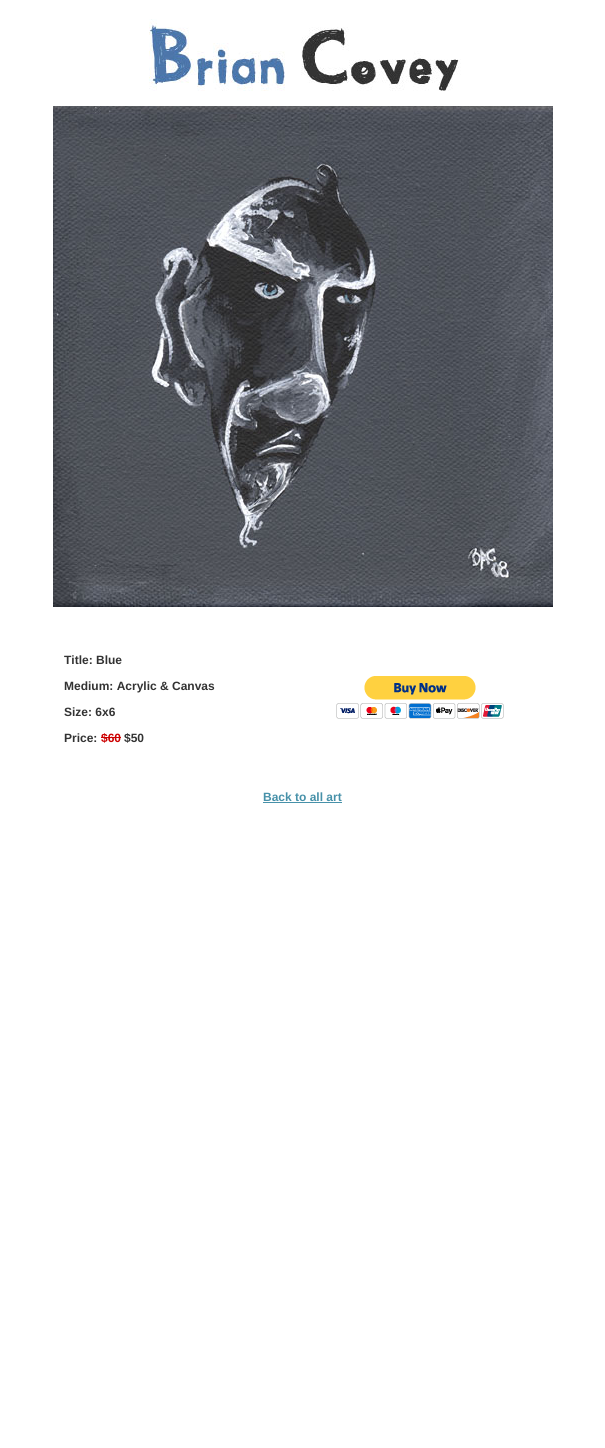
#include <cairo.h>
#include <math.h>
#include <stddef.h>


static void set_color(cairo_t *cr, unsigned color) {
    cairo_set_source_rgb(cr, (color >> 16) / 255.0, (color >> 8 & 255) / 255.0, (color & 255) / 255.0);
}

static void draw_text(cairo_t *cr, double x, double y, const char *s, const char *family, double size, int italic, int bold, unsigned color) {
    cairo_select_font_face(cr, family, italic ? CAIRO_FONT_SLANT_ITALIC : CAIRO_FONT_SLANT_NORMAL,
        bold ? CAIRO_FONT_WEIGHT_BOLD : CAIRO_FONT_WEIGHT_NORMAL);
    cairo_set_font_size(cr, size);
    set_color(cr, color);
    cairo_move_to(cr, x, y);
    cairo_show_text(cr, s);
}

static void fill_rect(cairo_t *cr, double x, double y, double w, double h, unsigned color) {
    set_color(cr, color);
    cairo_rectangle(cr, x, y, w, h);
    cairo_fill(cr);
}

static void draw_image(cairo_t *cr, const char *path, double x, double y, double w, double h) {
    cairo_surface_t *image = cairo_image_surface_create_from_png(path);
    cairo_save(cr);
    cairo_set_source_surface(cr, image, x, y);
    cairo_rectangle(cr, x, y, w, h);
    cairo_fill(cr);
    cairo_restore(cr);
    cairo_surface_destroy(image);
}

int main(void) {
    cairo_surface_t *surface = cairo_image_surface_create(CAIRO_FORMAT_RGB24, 605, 1448);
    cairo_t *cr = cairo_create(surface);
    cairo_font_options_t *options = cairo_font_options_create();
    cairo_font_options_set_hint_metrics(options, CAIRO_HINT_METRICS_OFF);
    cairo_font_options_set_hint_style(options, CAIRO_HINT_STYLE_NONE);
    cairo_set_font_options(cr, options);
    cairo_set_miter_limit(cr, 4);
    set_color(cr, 0xFFFFFF);
    cairo_paint(cr);
    draw_image(cr, "assets/img1.png", 149, 19, 312, 72);
    draw_image(cr, "assets/img2.png", 53, 106, 500, 501);
    draw_text(cr, 64, 664, "Title: Blue", "Liberation Sans", 12, 0, 1, 0x333333);
    draw_text(cr, 64, 690, "Medium: Acrylic & Canvas", "Liberation Sans", 12, 0, 1, 0x333333);
    draw_text(cr, 64, 716, "Size: 6x6", "Liberation Sans", 12, 0, 1, 0x333333);
    draw_text(cr, 64, 742, "Price:", "Liberation Sans", 12, 0, 1, 0x333333);
    draw_text(cr, 101, 742, "$60", "Liberation Sans", 12, 0, 1, 0xCC0000);
    fill_rect(cr, 101, 737, 20, 1, 0xCC0000);
    draw_text(cr, 124, 742, "$50", "Liberation Sans", 12, 0, 1, 0x333333);
    draw_image(cr, "assets/img3.png", 336, 676, 168, 43);
    draw_text(cr, 263, 801, "Back to all art", "Liberation Sans", 12, 0, 1, 0x4791A9);
    fill_rect(cr, 263, 802, 79, 1, 0x4791A9);
    cairo_surface_write_to_png(surface, "output.png");
    cairo_font_options_destroy(options);
    cairo_destroy(cr);
    cairo_surface_destroy(surface);
    return 0;
}
